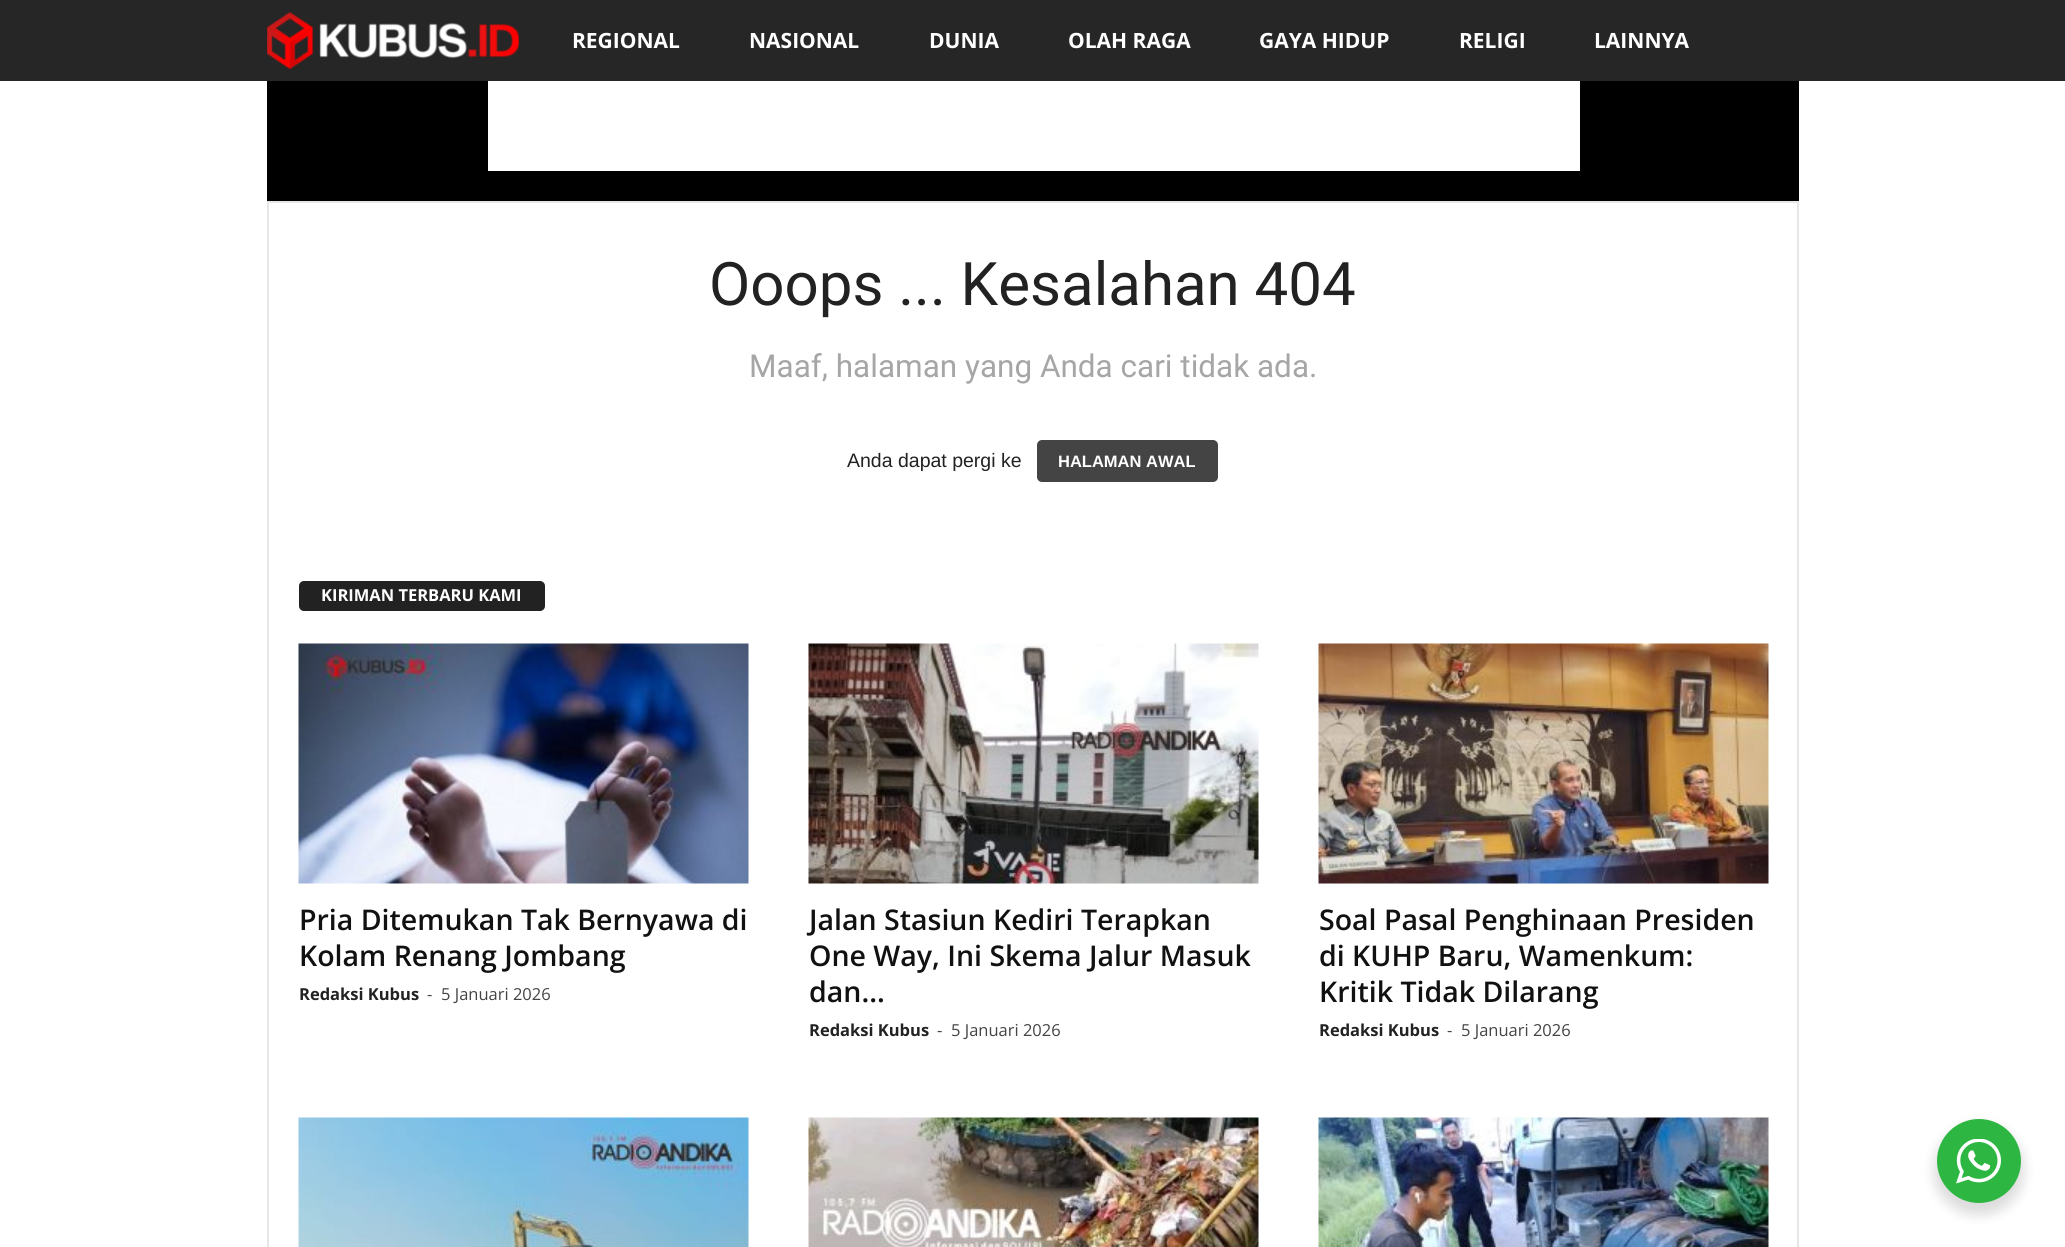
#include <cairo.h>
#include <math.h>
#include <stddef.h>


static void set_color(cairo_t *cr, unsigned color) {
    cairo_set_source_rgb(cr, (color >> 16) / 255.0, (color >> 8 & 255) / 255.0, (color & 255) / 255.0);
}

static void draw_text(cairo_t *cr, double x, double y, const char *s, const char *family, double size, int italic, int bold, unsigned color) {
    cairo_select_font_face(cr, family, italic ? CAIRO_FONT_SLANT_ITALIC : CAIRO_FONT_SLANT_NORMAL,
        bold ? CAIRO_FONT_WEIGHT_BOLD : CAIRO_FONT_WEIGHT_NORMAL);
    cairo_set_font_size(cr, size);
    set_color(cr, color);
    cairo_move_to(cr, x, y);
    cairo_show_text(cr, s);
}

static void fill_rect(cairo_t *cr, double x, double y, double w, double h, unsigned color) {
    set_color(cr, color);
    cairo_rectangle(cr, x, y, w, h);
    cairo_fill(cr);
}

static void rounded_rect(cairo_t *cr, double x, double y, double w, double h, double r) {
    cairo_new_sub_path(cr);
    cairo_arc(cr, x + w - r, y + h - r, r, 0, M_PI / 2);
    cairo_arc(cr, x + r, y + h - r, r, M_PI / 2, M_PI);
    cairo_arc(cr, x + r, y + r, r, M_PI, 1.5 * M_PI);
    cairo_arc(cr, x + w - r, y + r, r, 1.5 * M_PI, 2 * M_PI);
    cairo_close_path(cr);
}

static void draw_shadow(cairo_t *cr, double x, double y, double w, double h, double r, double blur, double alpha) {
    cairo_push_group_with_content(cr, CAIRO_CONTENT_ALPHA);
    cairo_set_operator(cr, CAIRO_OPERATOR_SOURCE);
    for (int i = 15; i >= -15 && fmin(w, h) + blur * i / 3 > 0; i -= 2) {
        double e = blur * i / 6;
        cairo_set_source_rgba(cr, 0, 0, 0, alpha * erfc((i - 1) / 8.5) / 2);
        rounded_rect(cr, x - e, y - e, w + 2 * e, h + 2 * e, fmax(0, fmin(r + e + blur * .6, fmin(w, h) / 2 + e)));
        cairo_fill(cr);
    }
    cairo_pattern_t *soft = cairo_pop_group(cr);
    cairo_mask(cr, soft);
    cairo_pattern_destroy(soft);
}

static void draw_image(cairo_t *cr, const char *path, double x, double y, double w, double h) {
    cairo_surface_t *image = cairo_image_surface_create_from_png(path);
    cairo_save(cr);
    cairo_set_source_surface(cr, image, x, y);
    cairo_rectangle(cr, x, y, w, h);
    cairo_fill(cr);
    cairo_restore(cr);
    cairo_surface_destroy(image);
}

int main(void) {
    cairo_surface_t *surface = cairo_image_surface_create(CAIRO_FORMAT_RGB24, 2065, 1247);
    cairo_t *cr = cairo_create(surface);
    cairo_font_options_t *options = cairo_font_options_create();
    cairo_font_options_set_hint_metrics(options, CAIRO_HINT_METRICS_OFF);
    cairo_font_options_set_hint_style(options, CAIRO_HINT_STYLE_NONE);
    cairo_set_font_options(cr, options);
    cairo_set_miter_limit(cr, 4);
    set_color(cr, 0xFFFFFF);
    cairo_paint(cr);
    fill_rect(cr, 0, 0, 2065, 81, 0x262626);
    draw_image(cr, "assets/img1.png", 267, 11, 252, 59);
    draw_text(cr, 572, 48, "REGIONAL", "Open Sans", 21, 0, 1, 0xFFFFFF);
    draw_text(cr, 749, 48, "NASIONAL", "Open Sans", 21, 0, 1, 0xFFFFFF);
    draw_text(cr, 929, 48, "DUNIA", "Open Sans", 21, 0, 1, 0xFFFFFF);
    draw_text(cr, 1068, 48, "OLAH RAGA", "Open Sans", 21, 0, 1, 0xFFFFFF);
    draw_text(cr, 1259, 48, "GAYA HIDUP", "Open Sans", 21, 0, 1, 0xFFFFFF);
    draw_text(cr, 1459, 48, "RELIGI", "Open Sans", 21, 0, 1, 0xFFFFFF);
    draw_text(cr, 1594, 48, "LAINNYA", "Open Sans", 21, 0, 1, 0xFFFFFF);
    fill_rect(cr, 267, 81, 1532, 120, 0x000000);
    fill_rect(cr, 267, 201, 1532, 2, 0xE6E6E6);
    fill_rect(cr, 488, 81, 1092, 90, 0xFFFFFF);
    fill_rect(cr, 267, 203, 2, 1044, 0xE6E6E6);
    draw_text(cr, 709, 305, "Ooops ... Kesalahan 404", "Roboto", 60, 0, 0, 0x222222);
    draw_text(cr, 749, 377, "Maaf, halaman yang Anda cari tidak ada.", "Roboto", 31.5, 0, 0, 0xA6A6A6);
    draw_text(cr, 847, 467, "Anda dapat pergi ke", "Liberation Sans", 19.5, 0, 0, 0x222222);
    set_color(cr, 0x444444);
    rounded_rect(cr, 1037, 440, 181, 42, 5);
    cairo_fill(cr);
    draw_text(cr, 1058, 467, "HALAMAN AWAL", "Liberation Sans", 16.5, 0, 1, 0xFFFFFF);
    set_color(cr, 0x222222);
    rounded_rect(cr, 299, 581, 246, 30, 5);
    cairo_fill(cr);
    draw_text(cr, 321, 601, "KIRIMAN TERBARU KAMI", "Open Sans", 16.5, 0, 1, 0xFFFFFF);
    draw_image(cr, "assets/img2.png", 298, 643, 451, 241);
    draw_text(cr, 299, 930, "Pria Ditemukan Tak Bernyawa di", "Open Sans SemiBold", 28.5, 0, 0, 0x111111);
    draw_text(cr, 299, 966, "Kolam Renang Jombang", "Open Sans SemiBold", 28.5, 0, 0, 0x111111);
    draw_text(cr, 299, 1000, "Redaksi Kubus", "Open Sans", 16.5, 0, 1, 0x222222);
    draw_text(cr, 427, 1000, "-", "Open Sans", 16.5, 0, 0, 0x444444);
    draw_text(cr, 441, 1000, "5 Januari 2026", "Open Sans", 16.5, 0, 0, 0x444444);
    draw_image(cr, "assets/img3.png", 808, 643, 451, 241);
    draw_text(cr, 809, 930, "Jalan Stasiun Kediri Terapkan", "Open Sans SemiBold", 28.5, 0, 0, 0x111111);
    draw_text(cr, 809, 966, "One Way, Ini Skema Jalur Masuk", "Open Sans SemiBold", 28.5, 0, 0, 0x111111);
    draw_text(cr, 809, 1002, "dan...", "Open Sans SemiBold", 28.5, 0, 0, 0x111111);
    draw_text(cr, 809, 1036, "Redaksi Kubus", "Open Sans", 16.5, 0, 1, 0x222222);
    draw_text(cr, 937, 1036, "-", "Open Sans", 16.5, 0, 0, 0x444444);
    draw_text(cr, 951, 1036, "5 Januari 2026", "Open Sans", 16.5, 0, 0, 0x444444);
    draw_image(cr, "assets/img4.png", 1318, 643, 451, 241);
    draw_text(cr, 1319, 930, "Soal Pasal Penghinaan Presiden", "Open Sans SemiBold", 28.5, 0, 0, 0x111111);
    draw_text(cr, 1319, 966, "di KUHP Baru, Wamenkum:", "Open Sans SemiBold", 28.5, 0, 0, 0x111111);
    draw_text(cr, 1319, 1002, "Kritik Tidak Dilarang", "Open Sans SemiBold", 28.5, 0, 0, 0x111111);
    draw_text(cr, 1319, 1036, "Redaksi Kubus", "Open Sans", 16.5, 0, 1, 0x222222);
    draw_text(cr, 1447, 1036, "-", "Open Sans", 16.5, 0, 0, 0x444444);
    draw_text(cr, 1461, 1036, "5 Januari 2026", "Open Sans", 16.5, 0, 0, 0x444444);
    draw_image(cr, "assets/img5.png", 298, 1117, 451, 130);
    draw_image(cr, "assets/img6.png", 808, 1117, 451, 130);
    draw_image(cr, "assets/img7.png", 1318, 1117, 451, 130);
    fill_rect(cr, 1797, 203, 2, 1044, 0xE6E6E6);
    set_color(cr, 0x000000);
    draw_shadow(cr, 1934, 1125, 90, 90, 45, 6, 0.14);
    set_color(cr, 0x2DB742);
    cairo_arc(cr, 1979, 1161, 42, 0, 2 * M_PI);
    cairo_fill(cr);
    draw_image(cr, "assets/img8.png", 1956, 1139, 45, 45);
    cairo_surface_write_to_png(surface, "output.png");
    cairo_font_options_destroy(options);
    cairo_destroy(cr);
    cairo_surface_destroy(surface);
    return 0;
}
